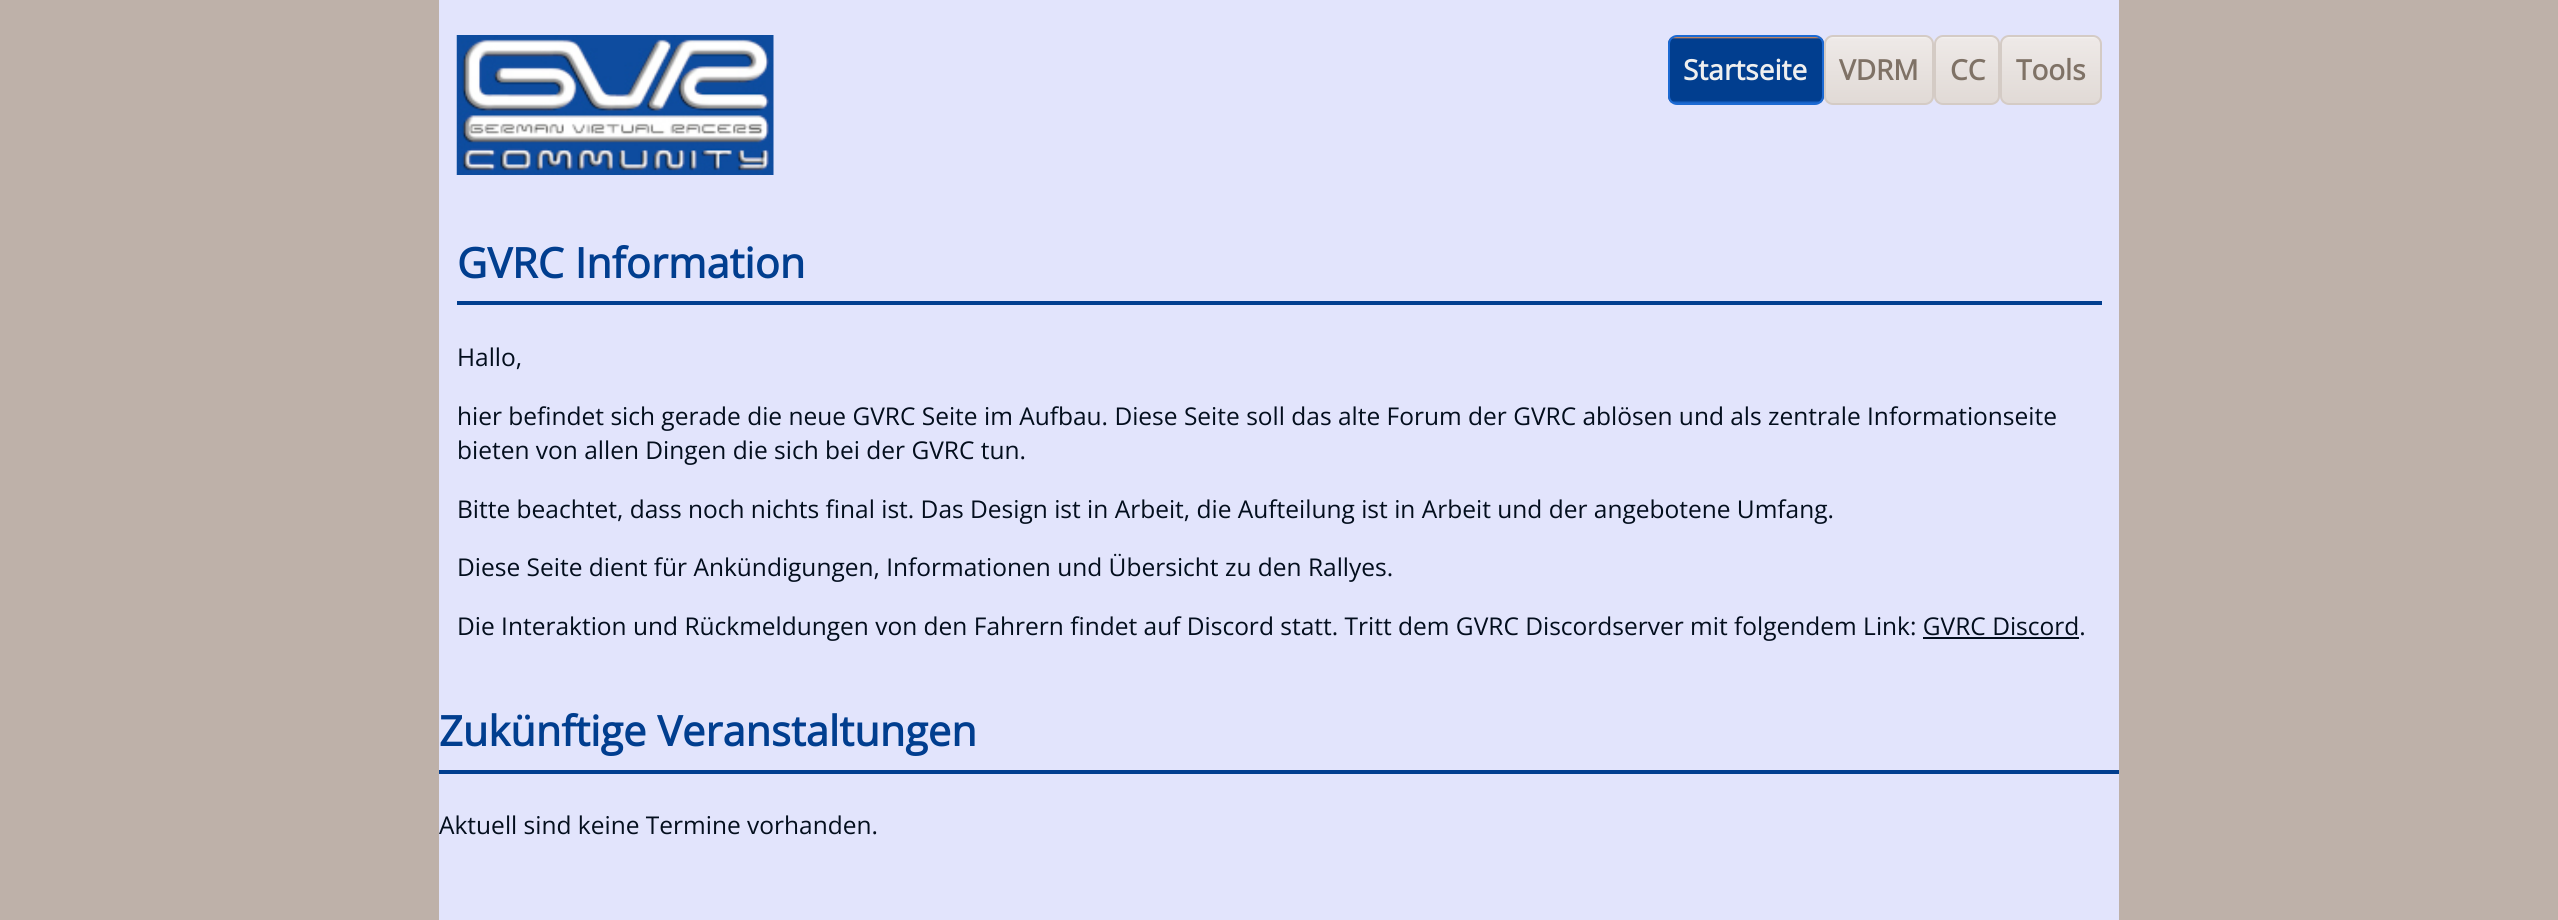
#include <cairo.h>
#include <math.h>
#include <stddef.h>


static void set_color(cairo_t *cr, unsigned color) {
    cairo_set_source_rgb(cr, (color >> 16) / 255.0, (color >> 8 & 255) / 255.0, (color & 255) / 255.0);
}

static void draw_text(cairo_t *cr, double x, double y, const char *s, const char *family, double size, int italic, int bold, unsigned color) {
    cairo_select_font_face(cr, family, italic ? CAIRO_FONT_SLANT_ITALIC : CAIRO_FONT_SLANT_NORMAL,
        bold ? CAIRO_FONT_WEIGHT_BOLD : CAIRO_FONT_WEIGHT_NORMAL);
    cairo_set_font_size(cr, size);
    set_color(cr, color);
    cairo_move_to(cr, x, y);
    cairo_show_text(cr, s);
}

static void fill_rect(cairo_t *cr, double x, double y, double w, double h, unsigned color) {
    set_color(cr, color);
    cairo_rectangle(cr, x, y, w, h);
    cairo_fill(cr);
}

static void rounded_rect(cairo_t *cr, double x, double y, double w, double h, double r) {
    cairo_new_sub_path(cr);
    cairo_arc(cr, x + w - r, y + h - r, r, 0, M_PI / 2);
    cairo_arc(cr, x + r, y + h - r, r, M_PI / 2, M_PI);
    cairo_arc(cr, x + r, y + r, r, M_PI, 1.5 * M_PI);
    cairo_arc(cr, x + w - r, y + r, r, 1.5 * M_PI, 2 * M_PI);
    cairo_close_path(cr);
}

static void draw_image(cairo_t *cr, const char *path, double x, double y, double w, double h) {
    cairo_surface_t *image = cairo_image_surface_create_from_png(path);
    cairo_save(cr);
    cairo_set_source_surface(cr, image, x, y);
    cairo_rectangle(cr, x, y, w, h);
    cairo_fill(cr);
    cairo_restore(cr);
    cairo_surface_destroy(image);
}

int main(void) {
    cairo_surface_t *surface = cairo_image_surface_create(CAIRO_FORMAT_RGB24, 2558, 920);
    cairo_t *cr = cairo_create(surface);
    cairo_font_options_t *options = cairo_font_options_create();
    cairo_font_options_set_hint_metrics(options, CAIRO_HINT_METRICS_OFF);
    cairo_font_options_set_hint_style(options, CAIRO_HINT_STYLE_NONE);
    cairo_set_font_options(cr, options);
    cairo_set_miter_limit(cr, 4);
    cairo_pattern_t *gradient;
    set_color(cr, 0xBEB1A9);
    cairo_paint(cr);
    fill_rect(cr, 439, 0, 1680, 920, 0xE2E4FC);
    draw_image(cr, "assets/img1.png", 456, 35, 318, 140);
    cairo_save(cr);
    rounded_rect(cr, 1668, 35, 156, 70, 9);
    cairo_clip(cr);
    gradient = cairo_pattern_create_linear(1746, 37, 1746, 103);
    cairo_pattern_add_color_stop_rgba(gradient, 0, 1, 0.608, 0.314, 1);
    cairo_pattern_add_color_stop_rgba(gradient, 0.03, 0.004, 0.243, 0.561, 1);
    cairo_pattern_add_color_stop_rgba(gradient, 0.96, 0.004, 0.243, 0.561, 1);
    cairo_pattern_add_color_stop_rgba(gradient, 1, 0.11, 0.416, 0.827, 1);
    cairo_set_source(cr, gradient);
    cairo_pattern_destroy(gradient);
    cairo_rectangle(cr, 1668, 37, 156, 66);
    cairo_fill(cr);
    cairo_restore(cr);
    rounded_rect(cr, 1669, 36, 154, 68, 8);
    set_color(cr, 0x1C6AD3);
    cairo_stroke(cr);
    draw_text(cr, 1683, 80, "Startseite", "Open Sans", 28, 0, 1, 0xEFEFEF);
    cairo_save(cr);
    rounded_rect(cr, 1824, 35, 110, 70, 9);
    cairo_clip(cr);
    gradient = cairo_pattern_create_linear(1879, 37, 1879, 103);
    cairo_pattern_add_color_stop_rgba(gradient, 0, 0.957, 0.949, 0.941, 1);
    cairo_pattern_add_color_stop_rgba(gradient, 0.03, 0.933, 0.914, 0.906, 1);
    cairo_pattern_add_color_stop_rgba(gradient, 1, 0.882, 0.855, 0.839, 1);
    cairo_set_source(cr, gradient);
    cairo_pattern_destroy(gradient);
    cairo_rectangle(cr, 1824, 37, 110, 66);
    cairo_fill(cr);
    cairo_restore(cr);
    rounded_rect(cr, 1825, 36, 108, 68, 8);
    set_color(cr, 0xD4CBC5);
    cairo_stroke(cr);
    draw_text(cr, 1839, 80, "VDRM", "Open Sans", 28, 0, 1, 0x7F7266);
    cairo_save(cr);
    rounded_rect(cr, 1934, 35, 66, 70, 9);
    cairo_clip(cr);
    gradient = cairo_pattern_create_linear(1967, 37, 1967, 103);
    cairo_pattern_add_color_stop_rgba(gradient, 0, 0.957, 0.949, 0.941, 1);
    cairo_pattern_add_color_stop_rgba(gradient, 0.03, 0.933, 0.914, 0.906, 1);
    cairo_pattern_add_color_stop_rgba(gradient, 1, 0.882, 0.855, 0.839, 1);
    cairo_set_source(cr, gradient);
    cairo_pattern_destroy(gradient);
    cairo_rectangle(cr, 1934, 37, 66, 66);
    cairo_fill(cr);
    cairo_restore(cr);
    rounded_rect(cr, 1935, 36, 64, 68, 8);
    set_color(cr, 0xD4CBC5);
    cairo_stroke(cr);
    draw_text(cr, 1950, 80, "CC", "Open Sans", 28, 0, 1, 0x7F7266);
    cairo_save(cr);
    rounded_rect(cr, 2000, 35, 102, 70, 9);
    cairo_clip(cr);
    gradient = cairo_pattern_create_linear(2051, 37, 2051, 103);
    cairo_pattern_add_color_stop_rgba(gradient, 0, 0.957, 0.949, 0.941, 1);
    cairo_pattern_add_color_stop_rgba(gradient, 0.03, 0.933, 0.914, 0.906, 1);
    cairo_pattern_add_color_stop_rgba(gradient, 1, 0.882, 0.855, 0.839, 1);
    cairo_set_source(cr, gradient);
    cairo_pattern_destroy(gradient);
    cairo_rectangle(cr, 2000, 37, 102, 66);
    cairo_fill(cr);
    cairo_restore(cr);
    rounded_rect(cr, 2001, 36, 100, 68, 8);
    set_color(cr, 0xD4CBC5);
    cairo_stroke(cr);
    draw_text(cr, 2016, 80, "Tools", "Open Sans", 28, 0, 1, 0x7F7266);
    fill_rect(cr, 457, 301, 1645, 4, 0x013E8F);
    draw_text(cr, 457, 278, "GVRC Information", "Open Sans", 41.6, 0, 1, 0x013E8F);
    draw_text(cr, 457, 366, "Hallo,", "Open Sans", 24.5, 0, 0, 0x030E1D);
    draw_text(cr, 457, 425, "hier befindet sich gerade die neue GVRC Seite im Aufbau. Diese Seite soll das alte Forum der GVRC ablösen und als zentrale Informationseite", "Open Sans", 24.5, 0, 0, 0x030E1D);
    draw_text(cr, 457, 459, "bieten von allen Dingen die sich bei der GVRC tun.", "Open Sans", 24.5, 0, 0, 0x030E1D);
    draw_text(cr, 457, 518, "Bitte beachtet, dass noch nichts final ist. Das Design ist in Arbeit, die Aufteilung ist in Arbeit und der angebotene Umfang.", "Open Sans", 24.5, 0, 0, 0x030E1D);
    draw_text(cr, 457, 576, "Diese Seite dient für Ankündigungen, Informationen und Übersicht zu den Rallyes.", "Open Sans", 24.5, 0, 0, 0x030E1D);
    draw_text(cr, 457, 635, "Die Interaktion und Rückmeldungen von den Fahrern findet auf Discord statt. Tritt dem GVRC Discordserver mit folgendem Link: GVRC Discord.", "Open Sans", 24.5, 0, 0, 0x030E1D);
    fill_rect(cr, 1923, 637, 156, 2, 0x030E1D);
    fill_rect(cr, 439, 770, 1680, 4, 0x013E8F);
    draw_text(cr, 439, 746, "Zukünftige Veranstaltungen", "Open Sans", 41.6, 0, 1, 0x013E8F);
    draw_text(cr, 439, 834, "Aktuell sind keine Termine vorhanden.", "Open Sans", 24.5, 0, 0, 0x030E1D);
    cairo_surface_write_to_png(surface, "output.png");
    cairo_font_options_destroy(options);
    cairo_destroy(cr);
    cairo_surface_destroy(surface);
    return 0;
}
